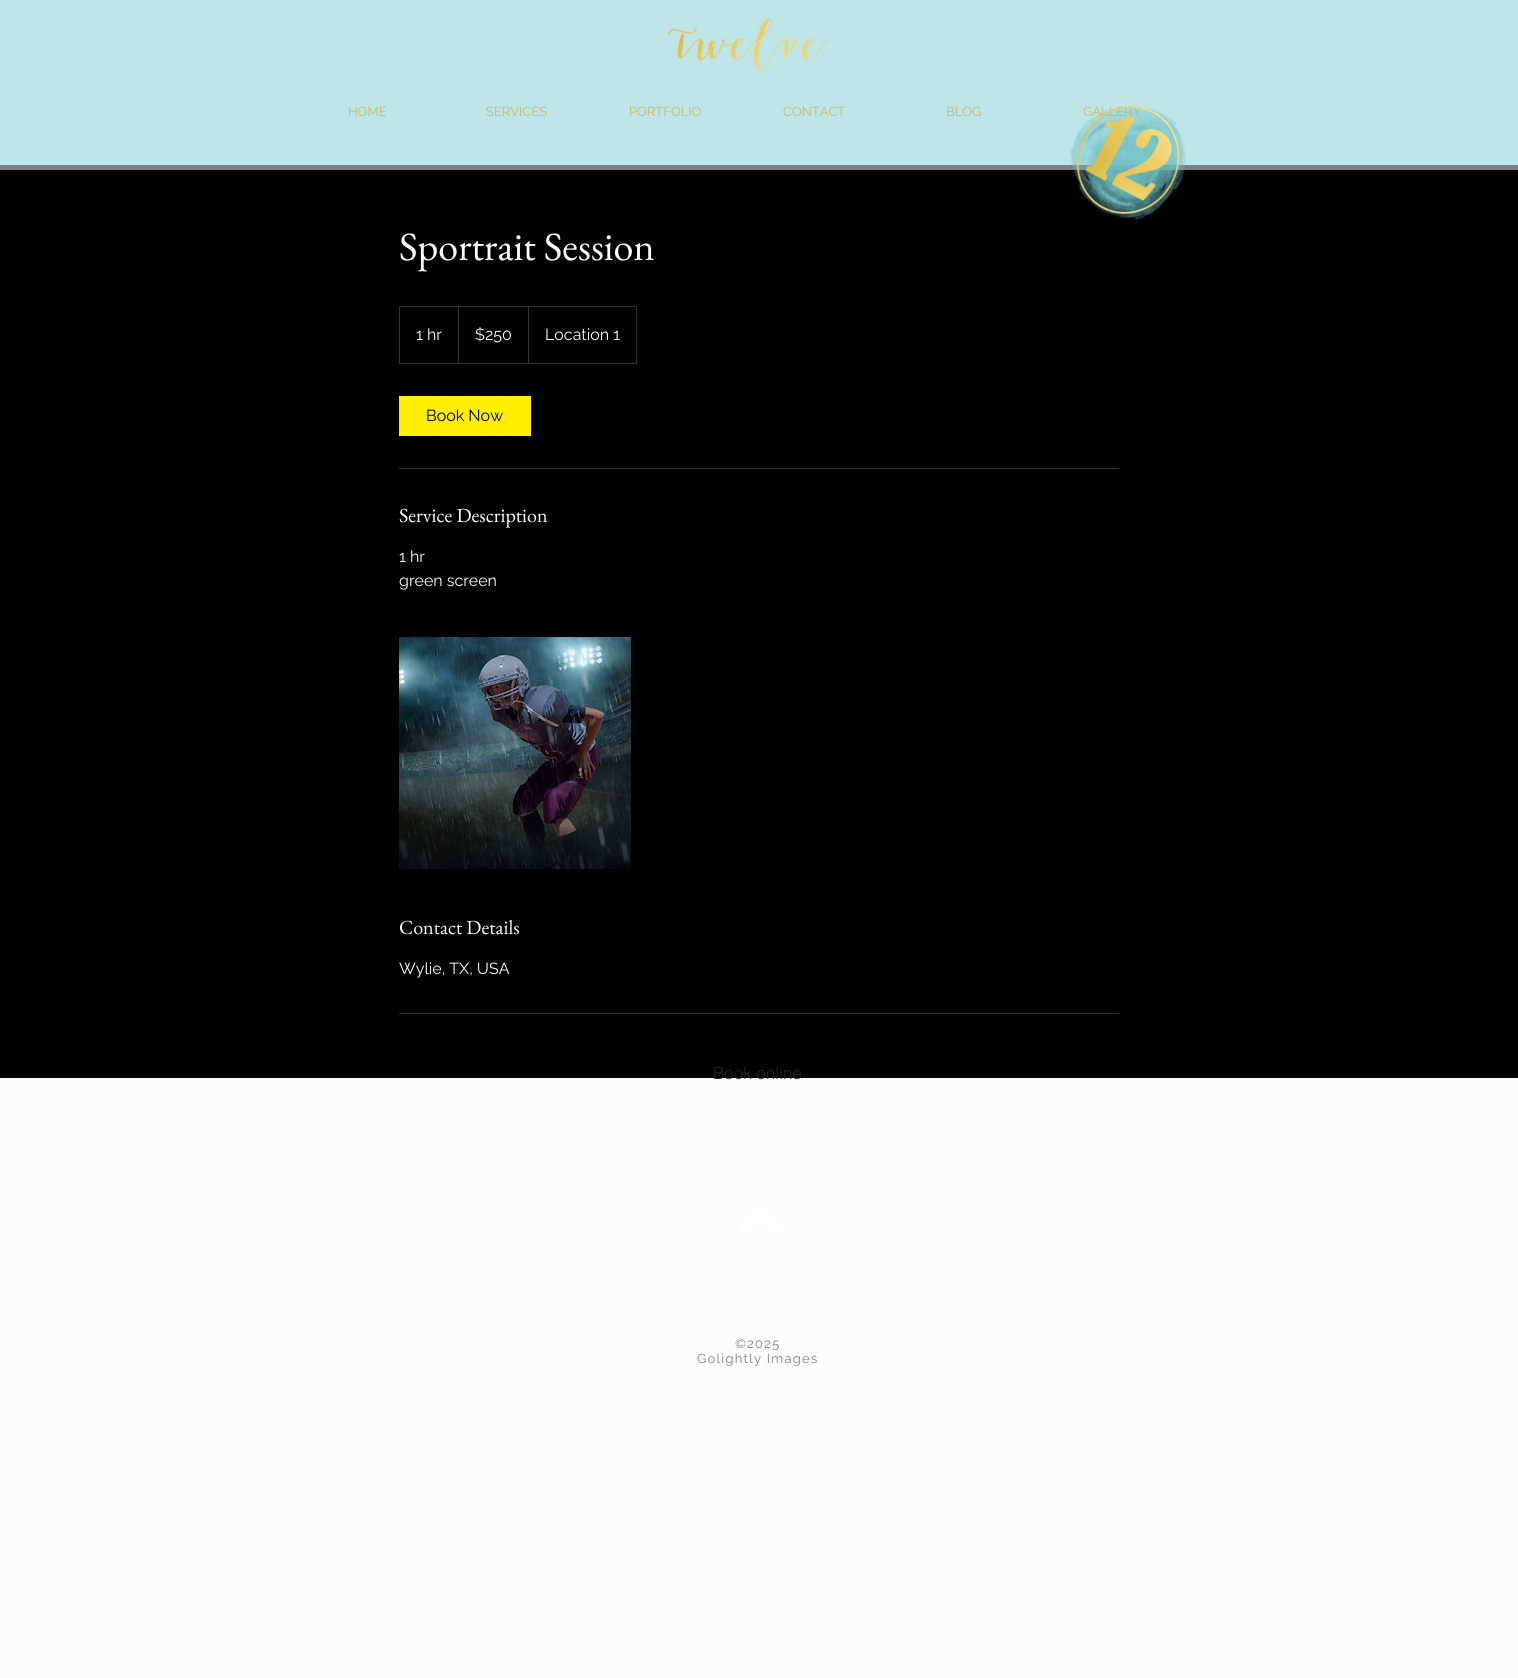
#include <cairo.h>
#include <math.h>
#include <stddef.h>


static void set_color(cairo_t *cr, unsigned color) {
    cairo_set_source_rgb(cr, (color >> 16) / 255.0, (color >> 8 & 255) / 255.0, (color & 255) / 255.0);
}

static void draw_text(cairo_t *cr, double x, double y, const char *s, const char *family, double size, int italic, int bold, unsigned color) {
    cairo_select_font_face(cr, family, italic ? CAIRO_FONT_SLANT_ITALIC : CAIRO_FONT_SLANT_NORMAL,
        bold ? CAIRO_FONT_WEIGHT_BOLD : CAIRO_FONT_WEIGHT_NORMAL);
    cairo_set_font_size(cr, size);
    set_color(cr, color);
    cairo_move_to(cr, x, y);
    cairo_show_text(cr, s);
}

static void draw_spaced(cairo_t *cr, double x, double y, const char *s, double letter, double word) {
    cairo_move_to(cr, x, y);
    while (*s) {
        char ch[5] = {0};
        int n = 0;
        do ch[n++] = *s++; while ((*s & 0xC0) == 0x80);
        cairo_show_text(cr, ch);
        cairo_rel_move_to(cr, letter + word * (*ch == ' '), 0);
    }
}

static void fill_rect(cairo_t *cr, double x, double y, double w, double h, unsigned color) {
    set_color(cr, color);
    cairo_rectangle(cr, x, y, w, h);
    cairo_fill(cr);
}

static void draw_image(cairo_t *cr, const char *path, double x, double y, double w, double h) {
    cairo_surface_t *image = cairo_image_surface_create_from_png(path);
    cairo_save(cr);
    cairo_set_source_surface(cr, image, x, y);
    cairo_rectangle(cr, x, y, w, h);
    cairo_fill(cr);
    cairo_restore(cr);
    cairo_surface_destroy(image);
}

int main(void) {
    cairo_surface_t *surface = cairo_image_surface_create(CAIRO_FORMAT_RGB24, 1518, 1678);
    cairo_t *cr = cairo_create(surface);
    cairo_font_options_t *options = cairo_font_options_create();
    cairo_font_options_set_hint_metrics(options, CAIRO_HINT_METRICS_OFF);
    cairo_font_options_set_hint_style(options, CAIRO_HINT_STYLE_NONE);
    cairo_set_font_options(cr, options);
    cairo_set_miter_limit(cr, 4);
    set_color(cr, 0xFCFCFC);
    cairo_paint(cr);
    fill_rect(cr, 0, 0, 1518, 165, 0xBEE5E8);
    fill_rect(cr, 0, 165, 1518, 5, 0x7F7F7F);
    draw_text(cr, 1083, 116, "GALLERY", "Raleway", 13, 0, 0, 0xCCBA56);
    fill_rect(cr, 0, 170, 1518, 908, 0x000000);
    draw_image(cr, "assets/img1.png", 1069, 105, 117, 115);
    draw_image(cr, "assets/img2.png", 668, 18, 161, 52);
    draw_text(cr, 348, 116, "HOME", "Raleway", 13, 0, 0, 0xCCBA56);
    draw_text(cr, 486, 116, "SERVICES", "Raleway", 13, 0, 0, 0xCCBA56);
    draw_text(cr, 629, 116, "PORTFOLIO", "Raleway", 13, 0, 0, 0xCCBA56);
    draw_text(cr, 783, 116, "CONTACT", "Raleway", 13, 0, 0, 0xCCBA56);
    draw_text(cr, 946, 116, "BLOG", "Raleway", 13, 0, 0, 0xCCBA56);
    draw_text(cr, 399, 260, "Sportrait Session", "EB Garamond", 40, 0, 0, 0xFFFFFF);
    cairo_rectangle(cr, 399.5, 306.5, 237, 57);
    set_color(cr, 0x333333);
    cairo_set_line_width(cr, 1);
    cairo_stroke(cr);
    draw_text(cr, 416, 340, "1 hr", "Raleway", 16, 0, 0, 0xFFFFFF);
    set_color(cr, 0x333333);
    cairo_new_path(cr);
    cairo_move_to(cr, 458, 363);
    cairo_line_to(cr, 458, 306);
    cairo_line_to(cr, 459, 307);
    cairo_line_to(cr, 459, 363);
    cairo_close_path(cr);
    cairo_fill(cr);
    draw_text(cr, 475, 340, "$250", "Raleway", 16, 0, 0, 0xFFFFFF);
    set_color(cr, 0x333333);
    cairo_new_path(cr);
    cairo_move_to(cr, 528, 363);
    cairo_line_to(cr, 528, 306);
    cairo_line_to(cr, 529, 307);
    cairo_line_to(cr, 529, 363);
    cairo_close_path(cr);
    cairo_fill(cr);
    draw_text(cr, 545, 340, "Location 1", "Raleway", 16, 0, 0, 0xFFFFFF);
    fill_rect(cr, 399, 396, 132, 40, 0xFFEE00);
    draw_text(cr, 426, 421, "Book Now", "Raleway", 16, 0, 0, 0x000000);
    fill_rect(cr, 399, 468, 720, 1, 0x333333);
    draw_text(cr, 399, 522, "Service Description", "EB Garamond", 20, 0, 0, 0xFFFFFF);
    draw_text(cr, 399, 562, "1 hr", "Raleway", 16, 0, 0, 0xFFFFFF);
    draw_text(cr, 399, 586, "green screen", "Raleway", 16, 0, 0, 0xFFFFFF);
    draw_image(cr, "assets/img3.png", 399, 637, 232, 232);
    draw_text(cr, 399, 934, "Contact Details", "EB Garamond", 20, 0, 0, 0xFFFFFF);
    draw_text(cr, 399, 974, "Wylie, TX, USA", "Raleway", 16, 0, 0, 0xFFFFFF);
    fill_rect(cr, 399, 1013, 720, 1, 0x333333);
    draw_text(cr, 713, 1079, "Book online", "helvetica Light", 17, 0, 0, 0x282626);
    set_color(cr, 0xFFFFFF);
    cairo_new_path(cr);
    cairo_move_to(cr, 778, 1231);
    cairo_curve_to(cr, 776, 1231, 762, 1216, 760, 1214);
    cairo_curve_to(cr, 757, 1216, 743, 1231, 741, 1231);
    cairo_curve_to(cr, 739, 1231, 738, 1229, 739, 1228);
    cairo_line_to(cr, 758, 1209);
    cairo_line_to(cr, 760, 1209);
    cairo_line_to(cr, 779, 1228);
    cairo_curve_to(cr, 781, 1229, 780, 1231, 778, 1231);
    cairo_close_path(cr);
    cairo_fill(cr);
    cairo_select_font_face(cr, "Raleway", CAIRO_FONT_SLANT_NORMAL, CAIRO_FONT_WEIGHT_NORMAL);
    cairo_set_font_size(cr, 13);
    set_color(cr, 0x7F7F7F);
    draw_spaced(cr, 735, 1348, "©2025", 1.25, 0);
    draw_spaced(cr, 697, 1363, "Golightly Images", 1.25, 0);
    cairo_surface_write_to_png(surface, "output.png");
    cairo_font_options_destroy(options);
    cairo_destroy(cr);
    cairo_surface_destroy(surface);
    return 0;
}
